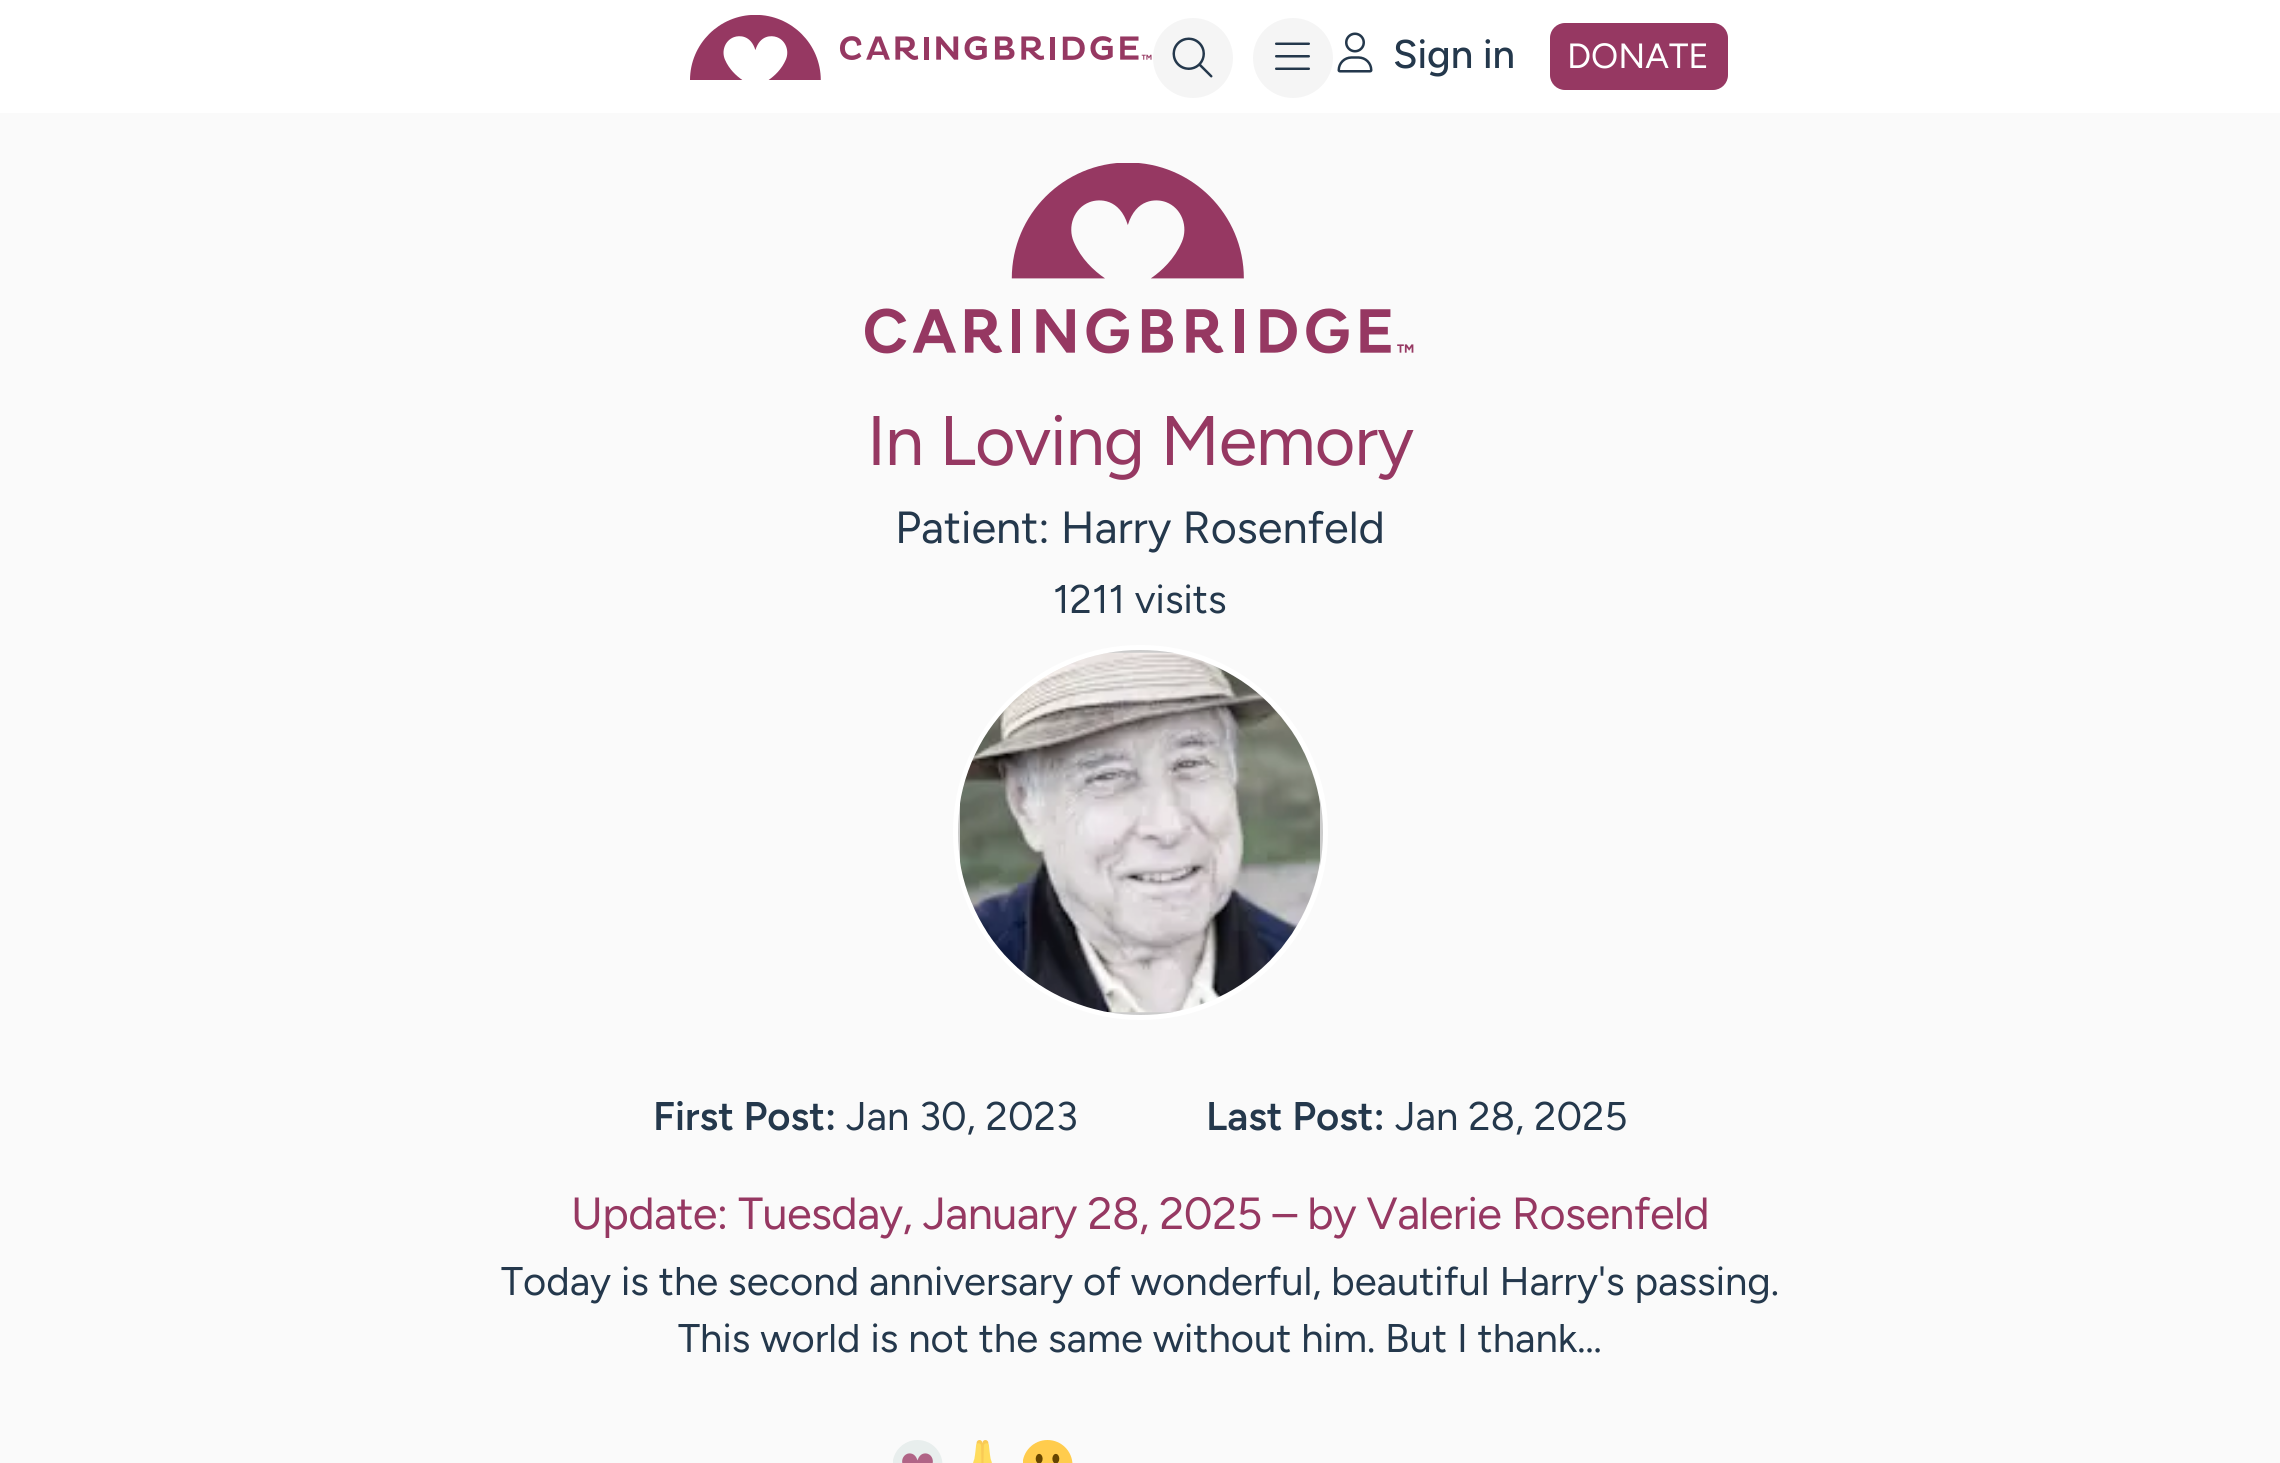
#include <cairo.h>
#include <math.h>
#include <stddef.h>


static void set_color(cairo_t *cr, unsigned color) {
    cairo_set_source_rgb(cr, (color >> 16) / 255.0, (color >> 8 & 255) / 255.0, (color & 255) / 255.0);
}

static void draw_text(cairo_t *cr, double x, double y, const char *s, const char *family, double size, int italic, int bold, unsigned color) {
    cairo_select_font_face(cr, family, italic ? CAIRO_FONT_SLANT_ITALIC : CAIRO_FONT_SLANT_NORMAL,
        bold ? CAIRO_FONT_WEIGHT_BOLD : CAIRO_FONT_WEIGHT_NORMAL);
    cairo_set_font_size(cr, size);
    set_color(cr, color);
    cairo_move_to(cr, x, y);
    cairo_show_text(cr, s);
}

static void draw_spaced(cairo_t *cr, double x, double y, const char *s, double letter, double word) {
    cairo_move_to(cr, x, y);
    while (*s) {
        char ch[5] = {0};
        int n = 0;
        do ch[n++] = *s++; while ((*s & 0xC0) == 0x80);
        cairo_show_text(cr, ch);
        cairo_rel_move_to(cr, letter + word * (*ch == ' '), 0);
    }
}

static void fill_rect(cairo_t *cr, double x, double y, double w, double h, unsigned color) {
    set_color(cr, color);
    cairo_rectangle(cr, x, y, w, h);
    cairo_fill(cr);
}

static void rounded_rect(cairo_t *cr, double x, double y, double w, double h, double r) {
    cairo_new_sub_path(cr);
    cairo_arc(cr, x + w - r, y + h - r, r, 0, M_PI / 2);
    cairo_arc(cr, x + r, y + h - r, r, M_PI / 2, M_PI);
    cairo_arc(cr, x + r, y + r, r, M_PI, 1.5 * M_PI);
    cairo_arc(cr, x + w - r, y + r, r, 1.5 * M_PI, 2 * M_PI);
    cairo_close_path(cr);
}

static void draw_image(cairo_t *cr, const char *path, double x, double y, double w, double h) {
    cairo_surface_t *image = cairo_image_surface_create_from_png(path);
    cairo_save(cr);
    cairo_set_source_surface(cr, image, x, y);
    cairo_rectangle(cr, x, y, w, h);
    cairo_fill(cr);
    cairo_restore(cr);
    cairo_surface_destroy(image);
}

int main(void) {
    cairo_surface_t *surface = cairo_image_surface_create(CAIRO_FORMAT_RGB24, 2280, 1463);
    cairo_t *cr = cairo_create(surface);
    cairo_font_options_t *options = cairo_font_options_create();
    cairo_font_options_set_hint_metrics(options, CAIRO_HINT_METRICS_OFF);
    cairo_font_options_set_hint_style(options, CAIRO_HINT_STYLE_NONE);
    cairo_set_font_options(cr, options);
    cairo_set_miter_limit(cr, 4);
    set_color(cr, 0xFAFAFA);
    cairo_paint(cr);
    fill_rect(cr, 0, 0, 2280, 113, 0xFFFFFF);
    draw_image(cr, "assets/img1.png", 690, 15, 462, 65);
    set_color(cr, 0xF5F5F5);
    cairo_arc(cr, 1193, 58, 40, 0, 2 * M_PI);
    cairo_fill(cr);
    draw_image(cr, "assets/img2.png", 1172, 37, 41, 41);
    cairo_arc(cr, 1293, 58, 40, 0, 2 * M_PI);
    cairo_fill(cr);
    draw_image(cr, "assets/img3.png", 1275, 42, 35, 28);
    draw_image(cr, "assets/img4.png", 1337, 32, 36, 41);
    draw_text(cr, 1393, 68, "Sign in", "Figtree Medium", 40, 0, 0, 0x24384C);
    set_color(cr, 0x963862);
    rounded_rect(cr, 1550, 23, 178, 67, 15);
    cairo_fill(cr);
    draw_text(cr, 1567, 68, "DONATE", "Figtree", 35, 0, 0, 0xFFFFFF);
    draw_image(cr, "assets/img5.png", 865, 163, 549, 191);
    cairo_set_font_size(cr, 70);
    set_color(cr, 0x963862);
    draw_spaced(cr, 867, 465, "In Loving Memory", -0.9, 0);
    draw_text(cr, 895, 543, "Patient: Harry Rosenfeld", "Figtree", 45, 0, 0, 0x24384C);
    draw_text(cr, 1053, 613, "1211 visits", "Figtree", 40, 0, 0, 0x24384C);
    cairo_new_path(cr);
    cairo_arc(cr, 1140.5, 832.5, 185, 0, 2 * M_PI);
    set_color(cr, 0xFFFFFF);
    cairo_set_line_width(cr, 5);
    cairo_stroke(cr);
    set_color(cr, 0xCCCCCC);
    cairo_set_fill_rule(cr, CAIRO_FILL_RULE_EVEN_ODD);
    cairo_new_path(cr);
    cairo_move_to(cr, 1140, 650);
    cairo_curve_to(cr, 1129, 650, 1118, 651, 1107, 653);
    cairo_line_to(cr, 1174, 653);
    cairo_curve_to(cr, 1163, 651, 1152, 650, 1140, 650);
    cairo_close_path(cr);
    cairo_move_to(cr, 1320, 799);
    cairo_curve_to(cr, 1324, 821, 1324, 844, 1320, 866);
    cairo_close_path(cr);
    cairo_move_to(cr, 1174, 1012);
    cairo_curve_to(cr, 1152, 1016, 1129, 1016, 1107, 1012);
    cairo_close_path(cr);
    cairo_move_to(cr, 961, 866);
    cairo_curve_to(cr, 957, 844, 957, 821, 961, 799);
    cairo_close_path(cr);
    cairo_fill(cr);
    draw_image(cr, "assets/img6.png", 960, 652, 360, 361);
    draw_text(cr, 653, 1130, "First Post:", "Figtree SemiBold", 40, 0, 0, 0x24384C);
    draw_text(cr, 846, 1130, "Jan 30, 2023", "Figtree", 40, 0, 0, 0x24384C);
    draw_text(cr, 1206, 1130, "Last Post:", "Figtree SemiBold", 40, 0, 0, 0x24384C);
    draw_text(cr, 1395, 1130, "Jan 28, 2025", "Figtree", 40, 0, 0, 0x24384C);
    cairo_set_font_size(cr, 45);
    set_color(cr, 0x963862);
    draw_spaced(cr, 571, 1229, "Update: Tuesday, January 28, 2025 – by Valerie Rosenfeld", -0.58, 0);
    draw_text(cr, 501, 1295, "Today is the second anniversary of wonderful, beautiful Harry's passing.", "Figtree", 40, 0, 0, 0x24384C);
    draw_text(cr, 678, 1352, "This world is not the same without him. But I thank…", "Figtree", 40, 0, 0, 0x24384C);
    draw_image(cr, "assets/img7.png", 893, 1440, 50, 23);
    draw_image(cr, "assets/img8.png", 973, 1440, 19, 23);
    draw_image(cr, "assets/img9.png", 1023, 1440, 50, 23);
    cairo_surface_write_to_png(surface, "output.png");
    cairo_font_options_destroy(options);
    cairo_destroy(cr);
    cairo_surface_destroy(surface);
    return 0;
}
